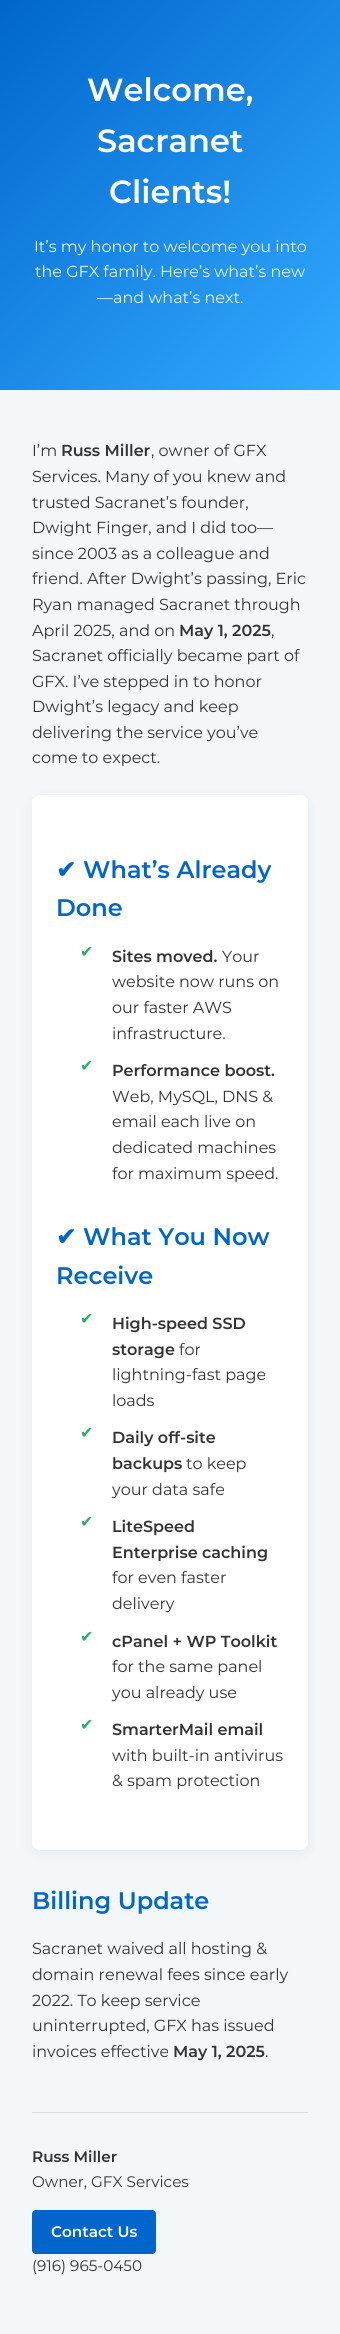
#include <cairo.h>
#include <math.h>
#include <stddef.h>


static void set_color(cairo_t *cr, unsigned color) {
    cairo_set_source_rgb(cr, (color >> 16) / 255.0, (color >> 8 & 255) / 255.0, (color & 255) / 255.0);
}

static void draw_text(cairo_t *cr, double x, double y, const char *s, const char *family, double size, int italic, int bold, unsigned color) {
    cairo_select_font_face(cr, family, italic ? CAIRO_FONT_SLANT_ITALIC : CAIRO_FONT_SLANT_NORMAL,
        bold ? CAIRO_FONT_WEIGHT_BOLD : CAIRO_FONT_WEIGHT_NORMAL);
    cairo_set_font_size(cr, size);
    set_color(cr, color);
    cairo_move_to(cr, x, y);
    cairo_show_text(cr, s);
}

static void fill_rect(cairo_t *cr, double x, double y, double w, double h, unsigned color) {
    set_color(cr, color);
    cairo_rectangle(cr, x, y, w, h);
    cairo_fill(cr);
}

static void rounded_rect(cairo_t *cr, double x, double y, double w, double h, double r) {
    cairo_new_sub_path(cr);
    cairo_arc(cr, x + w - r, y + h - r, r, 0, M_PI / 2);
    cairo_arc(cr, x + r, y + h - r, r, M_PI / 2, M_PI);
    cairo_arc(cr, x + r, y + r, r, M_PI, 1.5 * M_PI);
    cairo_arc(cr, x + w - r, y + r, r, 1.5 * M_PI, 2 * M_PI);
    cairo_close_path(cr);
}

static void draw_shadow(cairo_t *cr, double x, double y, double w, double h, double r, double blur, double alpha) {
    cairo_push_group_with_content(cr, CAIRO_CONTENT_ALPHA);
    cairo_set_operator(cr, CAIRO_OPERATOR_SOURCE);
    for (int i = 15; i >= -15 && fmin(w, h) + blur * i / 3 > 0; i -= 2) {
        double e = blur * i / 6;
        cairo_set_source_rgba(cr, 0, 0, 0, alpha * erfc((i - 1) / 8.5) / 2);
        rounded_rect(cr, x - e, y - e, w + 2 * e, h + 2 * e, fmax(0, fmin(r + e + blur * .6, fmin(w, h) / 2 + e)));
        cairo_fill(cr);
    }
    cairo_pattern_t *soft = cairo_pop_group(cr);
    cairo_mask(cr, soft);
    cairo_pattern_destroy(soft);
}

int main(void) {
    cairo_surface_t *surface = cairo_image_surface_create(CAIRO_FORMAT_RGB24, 340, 2334);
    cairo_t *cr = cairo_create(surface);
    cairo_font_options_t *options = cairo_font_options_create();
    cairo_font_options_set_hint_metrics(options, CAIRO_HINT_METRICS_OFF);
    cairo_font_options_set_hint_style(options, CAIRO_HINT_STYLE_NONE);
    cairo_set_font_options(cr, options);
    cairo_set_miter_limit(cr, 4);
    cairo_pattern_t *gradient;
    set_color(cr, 0xF4F7FA);
    cairo_paint(cr);
    gradient = cairo_pattern_create_linear(-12, 13, 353, 378);
    cairo_pattern_add_color_stop_rgba(gradient, 0, 0, 0.4, 0.8, 1);
    cairo_pattern_add_color_stop_rgba(gradient, 1, 0.2, 0.667, 1, 1);
    cairo_set_source(cr, gradient);
    cairo_pattern_destroy(gradient);
    cairo_rectangle(cr, 0, 0, 340, 390);
    cairo_fill(cr);
    draw_text(cr, 87, 101, "Welcome,", "Montserrat SemiBold", 32, 0, 0, 0xFFFFFF);
    draw_text(cr, 97, 152, "Sacranet", "Montserrat SemiBold", 32, 0, 0, 0xFFFFFF);
    draw_text(cr, 109, 203, "Clients!", "Montserrat SemiBold", 32, 0, 0, 0xFFFFFF);
    draw_text(cr, 34, 252, "It’s my honor to welcome you into", "Montserrat", 16, 0, 0, 0xE8F4FD);
    draw_text(cr, 35, 277, "the GFX family. Here’s what’s new", "Montserrat", 16, 0, 0, 0xE8F4FD);
    draw_text(cr, 97, 303, "—and what’s next.", "Montserrat", 16, 0, 0, 0xE8F4FD);
    draw_text(cr, 32, 456, "I’m", "Montserrat", 16, 0, 0, 0x333333);
    draw_text(cr, 61, 456, "Russ Miller", "Montserrat SemiBold", 16, 0, 0, 0x333333);
    draw_text(cr, 151, 456, ", owner of GFX", "Montserrat", 16, 0, 0, 0x333333);
    draw_text(cr, 32, 482, "Services. Many of you knew and", "Montserrat", 16, 0, 0, 0x333333);
    draw_text(cr, 32, 508, "trusted Sacranet’s founder,", "Montserrat", 16, 0, 0, 0x333333);
    draw_text(cr, 32, 533, "Dwight Finger, and I did too—", "Montserrat", 16, 0, 0, 0x333333);
    draw_text(cr, 32, 559, "since 2003 as a colleague and", "Montserrat", 16, 0, 0, 0x333333);
    draw_text(cr, 32, 584, "friend. After Dwight’s passing, Eric", "Montserrat", 16, 0, 0, 0x333333);
    draw_text(cr, 32, 610, "Ryan managed Sacranet through", "Montserrat", 16, 0, 0, 0x333333);
    draw_text(cr, 32, 636, "April 2025, and on", "Montserrat", 16, 0, 0, 0x333333);
    draw_text(cr, 179, 636, "May 1, 2025", "Montserrat SemiBold", 16, 0, 0, 0x333333);
    draw_text(cr, 271, 636, ",", "Montserrat", 16, 0, 0, 0x333333);
    draw_text(cr, 32, 661, "Sacranet officially became part of", "Montserrat", 16, 0, 0, 0x333333);
    draw_text(cr, 32, 687, "GFX. I’ve stepped in to honor", "Montserrat", 16, 0, 0, 0x333333);
    draw_text(cr, 32, 712, "Dwight’s legacy and keep", "Montserrat", 16, 0, 0, 0x333333);
    draw_text(cr, 32, 738, "delivering the service you’ve", "Montserrat", 16, 0, 0, 0x333333);
    draw_text(cr, 32, 763, "come to expect.", "Montserrat", 16, 0, 0, 0x333333);
    set_color(cr, 0x000000);
    draw_shadow(cr, 32, 799, 276, 1055, 8, 6, 0.05);
    set_color(cr, 0xFFFFFF);
    rounded_rect(cr, 32, 795, 276, 1055, 8);
    cairo_fill(cr);
    draw_text(cr, 56, 878, "✔", "DejaVu Sans", 24, 0, 1, 0x0066CC);
    draw_text(cr, 83, 878, "What’s Already", "Montserrat SemiBold", 24, 0, 0, 0x0066CC);
    draw_text(cr, 56, 916, "Done", "Montserrat SemiBold", 24, 0, 0, 0x0066CC);
    draw_text(cr, 80, 957, "✔", "DejaVu Sans", 16, 0, 0, 0x27AE60);
    draw_text(cr, 112, 962, "Sites moved.", "Montserrat SemiBold", 16, 0, 0, 0x333333);
    draw_text(cr, 222, 962, "Your", "Montserrat", 16, 0, 0, 0x333333);
    draw_text(cr, 112, 987, "website now runs on", "Montserrat", 16, 0, 0, 0x333333);
    draw_text(cr, 112, 1013, "our faster AWS", "Montserrat", 16, 0, 0, 0x333333);
    draw_text(cr, 112, 1039, "infrastructure.", "Montserrat", 16, 0, 0, 0x333333);
    draw_text(cr, 80, 1071, "✔", "DejaVu Sans", 16, 0, 0, 0x27AE60);
    draw_text(cr, 112, 1076, "Performance boost.", "Montserrat SemiBold", 16, 0, 0, 0x333333);
    draw_text(cr, 112, 1102, "Web, MySQL, DNS &", "Montserrat", 16, 0, 0, 0x333333);
    draw_text(cr, 112, 1127, "email each live on", "Montserrat", 16, 0, 0, 0x333333);
    draw_text(cr, 112, 1153, "dedicated machines", "Montserrat", 16, 0, 0, 0x333333);
    draw_text(cr, 112, 1179, "for maximum speed.", "Montserrat", 16, 0, 0, 0x333333);
    draw_text(cr, 56, 1245, "✔", "DejaVu Sans", 24, 0, 1, 0x0066CC);
    draw_text(cr, 83, 1245, "What You Now", "Montserrat SemiBold", 24, 0, 0, 0x0066CC);
    draw_text(cr, 56, 1284, "Receive", "Montserrat SemiBold", 24, 0, 0, 0x0066CC);
    draw_text(cr, 80, 1324, "✔", "DejaVu Sans", 16, 0, 0, 0x27AE60);
    draw_text(cr, 112, 1329, "High-speed SSD", "Montserrat SemiBold", 16, 0, 0, 0x333333);
    draw_text(cr, 112, 1355, "storage", "Montserrat SemiBold", 16, 0, 0, 0x333333);
    draw_text(cr, 179, 1355, "for", "Montserrat", 16, 0, 0, 0x333333);
    draw_text(cr, 112, 1380, "lightning-fast page", "Montserrat", 16, 0, 0, 0x333333);
    draw_text(cr, 112, 1406, "loads", "Montserrat", 16, 0, 0, 0x333333);
    draw_text(cr, 80, 1438, "✔", "DejaVu Sans", 16, 0, 0, 0x27AE60);
    draw_text(cr, 112, 1443, "Daily off-site", "Montserrat SemiBold", 16, 0, 0, 0x333333);
    draw_text(cr, 112, 1469, "backups", "Montserrat SemiBold", 16, 0, 0, 0x333333);
    draw_text(cr, 186, 1469, "to keep", "Montserrat", 16, 0, 0, 0x333333);
    draw_text(cr, 112, 1495, "your data safe", "Montserrat", 16, 0, 0, 0x333333);
    draw_text(cr, 80, 1527, "✔", "DejaVu Sans", 16, 0, 0, 0x27AE60);
    draw_text(cr, 112, 1532, "LiteSpeed", "Montserrat SemiBold", 16, 0, 0, 0x333333);
    draw_text(cr, 112, 1558, "Enterprise caching", "Montserrat SemiBold", 16, 0, 0, 0x333333);
    draw_text(cr, 112, 1583, "for even faster", "Montserrat", 16, 0, 0, 0x333333);
    draw_text(cr, 112, 1609, "delivery", "Montserrat", 16, 0, 0, 0x333333);
    draw_text(cr, 80, 1642, "✔", "DejaVu Sans", 16, 0, 0, 0x27AE60);
    draw_text(cr, 112, 1647, "cPanel + WP Toolkit", "Montserrat SemiBold", 16, 0, 0, 0x333333);
    draw_text(cr, 112, 1672, "for the same panel", "Montserrat", 16, 0, 0, 0x333333);
    draw_text(cr, 112, 1698, "you already use", "Montserrat", 16, 0, 0, 0x333333);
    draw_text(cr, 80, 1730, "✔", "DejaVu Sans", 16, 0, 0, 0x27AE60);
    draw_text(cr, 112, 1735, "SmarterMail email", "Montserrat SemiBold", 16, 0, 0, 0x333333);
    draw_text(cr, 112, 1761, "with built-in antivirus", "Montserrat", 16, 0, 0, 0x333333);
    draw_text(cr, 112, 1786, "& spam protection", "Montserrat", 16, 0, 0, 0x333333);
    draw_text(cr, 32, 1909, "Billing Update", "Montserrat SemiBold", 24, 0, 0, 0x0066CC);
    draw_text(cr, 32, 1954, "Sacranet waived all hosting &", "Montserrat", 16, 0, 0, 0x333333);
    draw_text(cr, 32, 1980, "domain renewal fees since early", "Montserrat", 16, 0, 0, 0x333333);
    draw_text(cr, 32, 2006, "2022. To keep service", "Montserrat", 16, 0, 0, 0x333333);
    draw_text(cr, 32, 2031, "uninterrupted, GFX has issued", "Montserrat", 16, 0, 0, 0x333333);
    draw_text(cr, 32, 2057, "invoices effective", "Montserrat", 16, 0, 0, 0x333333);
    draw_text(cr, 173, 2057, "May 1, 2025", "Montserrat SemiBold", 16, 0, 0, 0x333333);
    draw_text(cr, 265, 2057, ".", "Montserrat", 16, 0, 0, 0x333333);
    fill_rect(cr, 32, 2112, 276, 1, 0xDDDDDD);
    draw_text(cr, 32, 2162, "Russ Miller", "Montserrat SemiBold", 15.25, 0, 0, 0x333333);
    draw_text(cr, 32, 2187, "Owner, GFX Services", "Montserrat", 15.25, 0, 0, 0x333333);
    set_color(cr, 0x0066CC);
    rounded_rect(cr, 32, 2210, 124, 44, 4);
    cairo_fill(cr);
    draw_text(cr, 51, 2237, "Contact Us", "Montserrat SemiBold", 15.25, 0, 0, 0xFFFFFF);
    draw_text(cr, 32, 2271, "(916) 965-0450", "Montserrat", 15.25, 0, 0, 0x333333);
    cairo_surface_write_to_png(surface, "output.png");
    cairo_font_options_destroy(options);
    cairo_destroy(cr);
    cairo_surface_destroy(surface);
    return 0;
}
